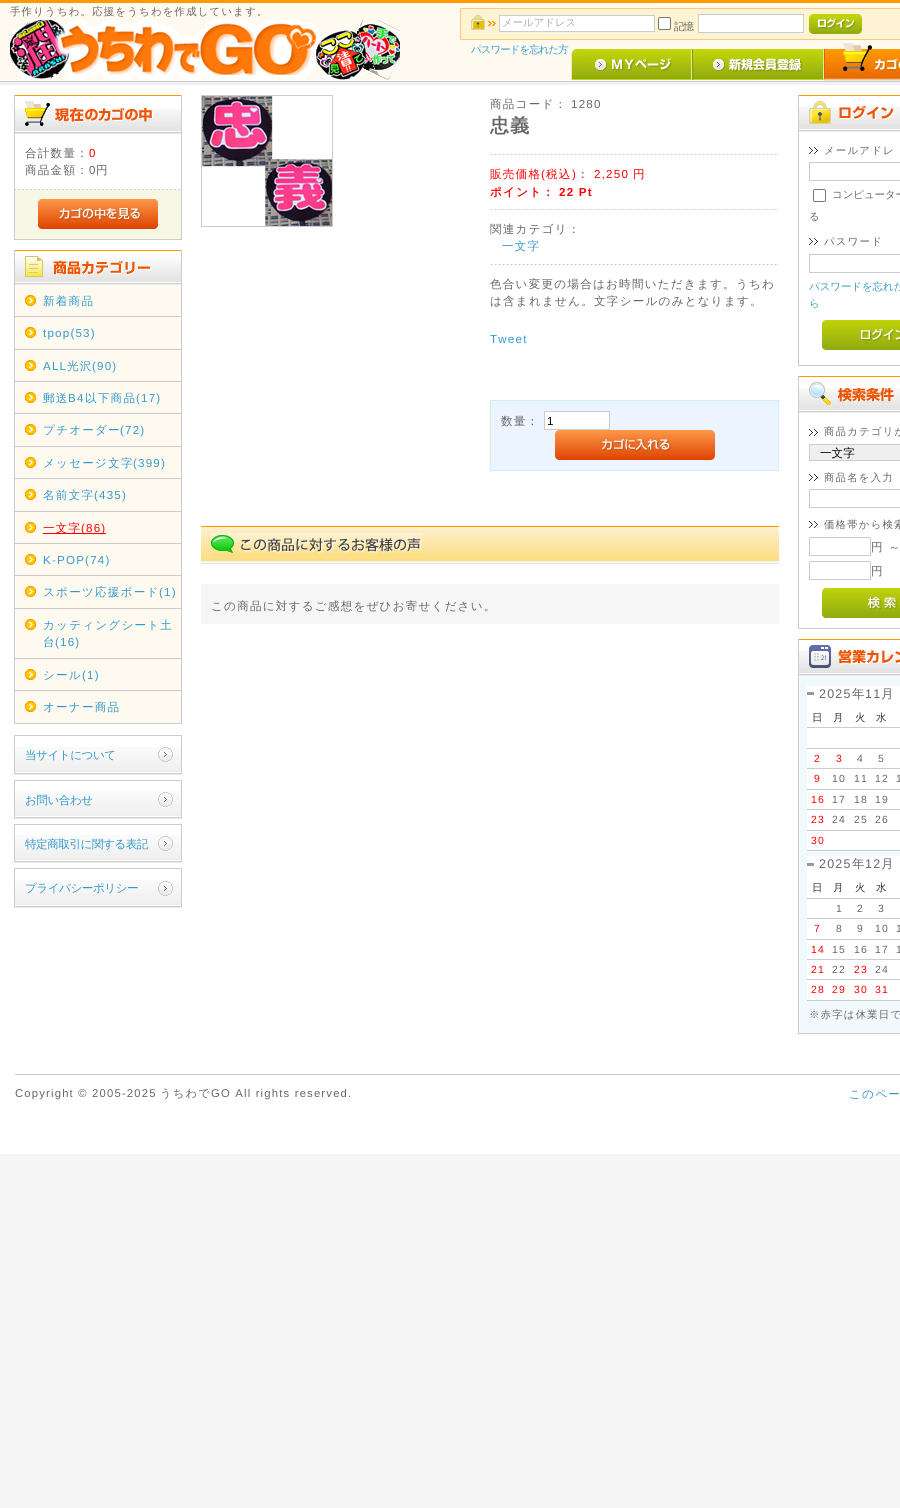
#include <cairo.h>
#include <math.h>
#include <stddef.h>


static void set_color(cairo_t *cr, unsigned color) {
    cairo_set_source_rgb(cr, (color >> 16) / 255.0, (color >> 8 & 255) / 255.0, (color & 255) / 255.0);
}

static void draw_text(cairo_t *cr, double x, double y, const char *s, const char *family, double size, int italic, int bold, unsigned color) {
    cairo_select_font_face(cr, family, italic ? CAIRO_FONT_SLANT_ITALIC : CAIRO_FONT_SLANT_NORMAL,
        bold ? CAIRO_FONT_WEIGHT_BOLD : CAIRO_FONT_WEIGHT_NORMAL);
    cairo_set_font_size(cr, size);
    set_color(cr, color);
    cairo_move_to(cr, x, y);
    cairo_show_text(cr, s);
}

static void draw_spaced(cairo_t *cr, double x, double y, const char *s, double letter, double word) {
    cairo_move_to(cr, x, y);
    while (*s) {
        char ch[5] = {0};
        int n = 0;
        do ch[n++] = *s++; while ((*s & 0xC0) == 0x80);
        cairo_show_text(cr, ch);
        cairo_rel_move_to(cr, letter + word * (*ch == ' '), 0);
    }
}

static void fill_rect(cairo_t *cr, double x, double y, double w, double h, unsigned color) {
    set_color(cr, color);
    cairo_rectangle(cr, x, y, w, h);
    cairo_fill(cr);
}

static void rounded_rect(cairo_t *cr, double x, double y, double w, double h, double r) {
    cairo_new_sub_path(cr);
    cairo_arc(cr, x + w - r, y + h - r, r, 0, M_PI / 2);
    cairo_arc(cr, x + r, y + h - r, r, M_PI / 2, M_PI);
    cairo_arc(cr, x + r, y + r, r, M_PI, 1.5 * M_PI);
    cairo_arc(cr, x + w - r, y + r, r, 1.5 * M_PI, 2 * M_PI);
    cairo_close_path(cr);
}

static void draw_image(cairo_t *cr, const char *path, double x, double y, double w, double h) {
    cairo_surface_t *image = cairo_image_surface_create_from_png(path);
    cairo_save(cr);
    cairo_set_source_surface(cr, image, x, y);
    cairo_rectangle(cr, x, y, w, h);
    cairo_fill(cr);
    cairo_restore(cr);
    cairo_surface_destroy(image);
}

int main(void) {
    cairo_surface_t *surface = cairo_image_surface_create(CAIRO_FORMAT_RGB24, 900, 1508);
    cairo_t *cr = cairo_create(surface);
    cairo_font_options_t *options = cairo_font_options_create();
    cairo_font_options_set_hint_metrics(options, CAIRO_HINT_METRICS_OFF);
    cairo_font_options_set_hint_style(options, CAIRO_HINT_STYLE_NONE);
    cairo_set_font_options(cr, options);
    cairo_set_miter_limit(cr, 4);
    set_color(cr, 0xF5F5F5);
    cairo_paint(cr);
    fill_rect(cr, 0, 3, 900, 77, 0xFFFAF0);
    draw_image(cr, "assets/img1.png", 0, 80, 900, 5);
    fill_rect(cr, 0, 0, 900, 3, 0xFF9900);
    cairo_select_font_face(cr, "WenQuanYi Zen Hei Medium", CAIRO_FONT_SLANT_NORMAL, CAIRO_FONT_WEIGHT_NORMAL);
    cairo_set_font_size(cr, 10.4);
    set_color(cr, 0x666666);
    draw_spaced(cr, 10, 15, "手作りうちわ。応援をうちわを作成しています。", 1.2, 0);
    draw_image(cr, "assets/img2.png", 10, 20, 390, 60);
    set_color(cr, 0xFEF3D3);
    cairo_rectangle(cr, 460.5, 8.5, 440, 31);
    cairo_fill_preserve(cr);
    set_color(cr, 0xFFC979);
    cairo_set_line_width(cr, 1);
    cairo_stroke(cr);
    draw_image(cr, "assets/img3.png", 471, 15, 25, 15);
    set_color(cr, 0xFFFFFF);
    cairo_rectangle(cr, 499.5, 15.5, 155, 16);
    cairo_fill_preserve(cr);
    set_color(cr, 0xCCCCCC);
    cairo_stroke(cr);
    draw_text(cr, 502, 26, "メールアドレス", "WenQuanYi Zen Hei Medium", 10.4, 0, 0, 0xAAAAAA);
    set_color(cr, 0xFFFFFF);
    rounded_rect(cr, 658.5, 17.5, 12, 12, 1.5);
    cairo_fill_preserve(cr);
    set_color(cr, 0x767676);
    cairo_stroke(cr);
    set_color(cr, 0x666666);
    draw_spaced(cr, 674, 30, "記憶", -0.9, 0);
    set_color(cr, 0xFFFFFF);
    cairo_rectangle(cr, 698.5, 14.5, 105, 18);
    cairo_fill_preserve(cr);
    set_color(cr, 0xCCCCCC);
    cairo_stroke(cr);
    draw_image(cr, "assets/img4.png", 809, 14, 53, 20);
    set_color(cr, 0x3399CC);
    draw_spaced(cr, 471, 53, "パスワードを忘れた方", -0.9, 0);
    draw_image(cr, "assets/img5.png", 571, 49, 121, 32);
    draw_image(cr, "assets/img6.png", 692, 49, 132, 32);
    draw_image(cr, "assets/img7.png", 824, 43, 76, 38);
    fill_rect(cr, 0, 85, 900, 1069, 0xFFFFFF);
    draw_image(cr, "assets/img8.png", 15, 109, 166, 25);
    fill_rect(cr, 14, 95, 168, 1, 0xFF9900);
    fill_rect(cr, 181, 95, 1, 145, 0xCCCCCC);
    fill_rect(cr, 14, 95, 1, 39, 0xCCCCCC);
    draw_image(cr, "assets/img9.png", 25, 101, 128, 25);
    fill_rect(cr, 14, 239, 168, 1, 0xCCCCCC);
    fill_rect(cr, 14, 134, 1, 106, 0xCCCCCC);
    cairo_set_font_size(cr, 11.6);
    set_color(cr, 0x666666);
    draw_spaced(cr, 25, 157, "合計数量：", 1.2, 0);
    cairo_select_font_face(cr, "Liberation Sans", CAIRO_FONT_SLANT_NORMAL, CAIRO_FONT_WEIGHT_NORMAL);
    set_color(cr, 0xFF0000);
    draw_spaced(cr, 89, 157, "0", 1.2, 0);
    cairo_select_font_face(cr, "WenQuanYi Zen Hei Medium", CAIRO_FONT_SLANT_NORMAL, CAIRO_FONT_WEIGHT_NORMAL);
    set_color(cr, 0x666666);
    draw_spaced(cr, 25, 174, "商品金額：", 1.2, 0);
    cairo_select_font_face(cr, "Liberation Sans", CAIRO_FONT_SLANT_NORMAL, CAIRO_FONT_WEIGHT_NORMAL);
    draw_spaced(cr, 89, 174, "0", 1.2, 0);
    cairo_select_font_face(cr, "WenQuanYi Zen Hei Medium", CAIRO_FONT_SLANT_NORMAL, CAIRO_FONT_WEIGHT_NORMAL);
    draw_spaced(cr, 96, 174, "円", 1.2, 0);
    fill_rect(cr, 15, 190, 166, 49, 0xF7F7E6);
    draw_image(cr, "assets/img10.png", 15, 189, 166, 1);
    draw_image(cr, "assets/img11.png", 38, 199, 120, 30);
    fill_rect(cr, 15, 251, 166, 472, 0xFFFAF0);
    fill_rect(cr, 181, 250, 1, 474, 0xCCCCCC);
    fill_rect(cr, 14, 723, 168, 1, 0xCCCCCC);
    fill_rect(cr, 14, 250, 1, 474, 0xCCCCCC);
    draw_image(cr, "assets/img12.png", 15, 252, 166, 33);
    fill_rect(cr, 15, 250, 166, 1, 0xFF9900);
    draw_image(cr, "assets/img13.png", 25, 256, 126, 21);
    fill_rect(cr, 15, 316, 166, 1, 0xCCCCCC);
    draw_image(cr, "assets/img14.png", 25, 295, 11, 11);
    set_color(cr, 0x3399CC);
    draw_spaced(cr, 43, 305, "新着商品", 1.2, 0);
    fill_rect(cr, 15, 349, 166, 1, 0xCCCCCC);
    draw_image(cr, "assets/img14.png", 25, 327, 11, 11);
    cairo_select_font_face(cr, "Liberation Sans", CAIRO_FONT_SLANT_NORMAL, CAIRO_FONT_WEIGHT_NORMAL);
    set_color(cr, 0x3399CC);
    draw_spaced(cr, 43, 337, "tpop(53)", 1.2, 0);
    fill_rect(cr, 15, 381, 166, 1, 0xCCCCCC);
    draw_image(cr, "assets/img14.png", 25, 360, 11, 11);
    set_color(cr, 0x3399CC);
    draw_spaced(cr, 43, 370, "ALL", 1.2, 0);
    cairo_select_font_face(cr, "WenQuanYi Zen Hei Medium", CAIRO_FONT_SLANT_NORMAL, CAIRO_FONT_WEIGHT_NORMAL);
    draw_spaced(cr, 67, 370, "光沢", 1.2, 0);
    cairo_select_font_face(cr, "Liberation Sans", CAIRO_FONT_SLANT_NORMAL, CAIRO_FONT_WEIGHT_NORMAL);
    draw_spaced(cr, 92, 370, "(90)", 1.2, 0);
    fill_rect(cr, 15, 413, 166, 1, 0xCCCCCC);
    draw_image(cr, "assets/img14.png", 25, 392, 11, 11);
    cairo_select_font_face(cr, "WenQuanYi Zen Hei Medium", CAIRO_FONT_SLANT_NORMAL, CAIRO_FONT_WEIGHT_NORMAL);
    set_color(cr, 0x3399CC);
    draw_spaced(cr, 43, 402, "郵送", 1.2, 0);
    cairo_select_font_face(cr, "Liberation Sans", CAIRO_FONT_SLANT_NORMAL, CAIRO_FONT_WEIGHT_NORMAL);
    draw_spaced(cr, 68, 402, "B4", 1.2, 0);
    cairo_select_font_face(cr, "WenQuanYi Zen Hei Medium", CAIRO_FONT_SLANT_NORMAL, CAIRO_FONT_WEIGHT_NORMAL);
    draw_spaced(cr, 85, 402, "以下商品", 1.2, 0);
    cairo_select_font_face(cr, "Liberation Sans", CAIRO_FONT_SLANT_NORMAL, CAIRO_FONT_WEIGHT_NORMAL);
    draw_spaced(cr, 136, 402, "(17)", 1.2, 0);
    fill_rect(cr, 15, 446, 166, 1, 0xCCCCCC);
    draw_image(cr, "assets/img14.png", 25, 424, 11, 11);
    cairo_select_font_face(cr, "WenQuanYi Zen Hei Medium", CAIRO_FONT_SLANT_NORMAL, CAIRO_FONT_WEIGHT_NORMAL);
    set_color(cr, 0x3399CC);
    draw_spaced(cr, 43, 434, "プチオーダー", 1.2, 0);
    cairo_select_font_face(cr, "Liberation Sans", CAIRO_FONT_SLANT_NORMAL, CAIRO_FONT_WEIGHT_NORMAL);
    draw_spaced(cr, 120, 434, "(72)", 1.2, 0);
    fill_rect(cr, 15, 478, 166, 1, 0xCCCCCC);
    draw_image(cr, "assets/img14.png", 25, 457, 11, 11);
    cairo_select_font_face(cr, "WenQuanYi Zen Hei Medium", CAIRO_FONT_SLANT_NORMAL, CAIRO_FONT_WEIGHT_NORMAL);
    set_color(cr, 0x3399CC);
    draw_spaced(cr, 43, 467, "メッセージ文字", 1.2, 0);
    cairo_select_font_face(cr, "Liberation Sans", CAIRO_FONT_SLANT_NORMAL, CAIRO_FONT_WEIGHT_NORMAL);
    draw_spaced(cr, 133, 467, "(399)", 1.2, 0);
    fill_rect(cr, 15, 511, 166, 1, 0xCCCCCC);
    draw_image(cr, "assets/img14.png", 25, 489, 11, 11);
    cairo_select_font_face(cr, "WenQuanYi Zen Hei Medium", CAIRO_FONT_SLANT_NORMAL, CAIRO_FONT_WEIGHT_NORMAL);
    set_color(cr, 0x3399CC);
    draw_spaced(cr, 43, 499, "名前文字", 1.2, 0);
    cairo_select_font_face(cr, "Liberation Sans", CAIRO_FONT_SLANT_NORMAL, CAIRO_FONT_WEIGHT_NORMAL);
    draw_spaced(cr, 94, 499, "(435)", 1.2, 0);
    fill_rect(cr, 15, 543, 166, 1, 0xCCCCCC);
    draw_image(cr, "assets/img14.png", 25, 522, 11, 11);
    fill_rect(cr, 43, 533, 63, 1, 0xFF0000);
    cairo_select_font_face(cr, "WenQuanYi Zen Hei Medium", CAIRO_FONT_SLANT_NORMAL, CAIRO_FONT_WEIGHT_NORMAL);
    draw_spaced(cr, 43, 532, "一文字", 1.2, 0);
    cairo_select_font_face(cr, "Liberation Sans", CAIRO_FONT_SLANT_NORMAL, CAIRO_FONT_WEIGHT_NORMAL);
    draw_spaced(cr, 81, 532, "(86)", 1.2, 0);
    fill_rect(cr, 15, 575, 166, 1, 0xCCCCCC);
    draw_image(cr, "assets/img14.png", 25, 554, 11, 11);
    set_color(cr, 0x3399CC);
    draw_spaced(cr, 43, 564, "K-POP(74)", 1.2, 0);
    fill_rect(cr, 15, 608, 166, 1, 0xCCCCCC);
    draw_image(cr, "assets/img14.png", 25, 586, 11, 11);
    cairo_select_font_face(cr, "WenQuanYi Zen Hei Medium", CAIRO_FONT_SLANT_NORMAL, CAIRO_FONT_WEIGHT_NORMAL);
    set_color(cr, 0x3399CC);
    draw_spaced(cr, 43, 596, "スポーツ応援ボード", 1.2, 0);
    cairo_select_font_face(cr, "Liberation Sans", CAIRO_FONT_SLANT_NORMAL, CAIRO_FONT_WEIGHT_NORMAL);
    draw_spaced(cr, 159, 596, "(1)", 1.2, 0);
    fill_rect(cr, 15, 658, 166, 1, 0xCCCCCC);
    draw_image(cr, "assets/img14.png", 25, 619, 11, 11);
    cairo_select_font_face(cr, "WenQuanYi Zen Hei Medium", CAIRO_FONT_SLANT_NORMAL, CAIRO_FONT_WEIGHT_NORMAL);
    set_color(cr, 0x3399CC);
    draw_spaced(cr, 43, 629, "カッティングシート土", 1.2, 0);
    draw_spaced(cr, 43, 646, "台", 1.2, 0);
    cairo_select_font_face(cr, "Liberation Sans", CAIRO_FONT_SLANT_NORMAL, CAIRO_FONT_WEIGHT_NORMAL);
    draw_spaced(cr, 55, 646, "(16)", 1.2, 0);
    fill_rect(cr, 15, 690, 166, 1, 0xCCCCCC);
    draw_image(cr, "assets/img14.png", 25, 669, 11, 11);
    cairo_select_font_face(cr, "WenQuanYi Zen Hei Medium", CAIRO_FONT_SLANT_NORMAL, CAIRO_FONT_WEIGHT_NORMAL);
    set_color(cr, 0x3399CC);
    draw_spaced(cr, 43, 679, "シール", 1.2, 0);
    cairo_select_font_face(cr, "Liberation Sans", CAIRO_FONT_SLANT_NORMAL, CAIRO_FONT_WEIGHT_NORMAL);
    draw_spaced(cr, 82, 679, "(1)", 1.2, 0);
    draw_image(cr, "assets/img14.png", 25, 701, 11, 11);
    cairo_select_font_face(cr, "WenQuanYi Zen Hei Medium", CAIRO_FONT_SLANT_NORMAL, CAIRO_FONT_WEIGHT_NORMAL);
    draw_spaced(cr, 43, 711, "オーナー商品", 1.2, 0);
    draw_image(cr, "assets/img15.png", 14, 747, 168, 28);
    draw_image(cr, "assets/img16.png", 158, 747, 15, 15);
    fill_rect(cr, 14, 735, 168, 1, 0xCCCCCC);
    fill_rect(cr, 181, 735, 1, 39, 0xCCCCCC);
    fill_rect(cr, 14, 735, 1, 39, 0xCCCCCC);
    set_color(cr, 0x3399CC);
    draw_spaced(cr, 25, 759, "当サイトについて", -0.5, 0);
    draw_image(cr, "assets/img15.png", 14, 791, 168, 28);
    draw_image(cr, "assets/img17.png", 158, 792, 15, 15);
    fill_rect(cr, 14, 780, 168, 1, 0xCCCCCC);
    fill_rect(cr, 181, 780, 1, 38, 0xCCCCCC);
    fill_rect(cr, 14, 780, 1, 38, 0xCCCCCC);
    set_color(cr, 0x3399CC);
    draw_spaced(cr, 25, 804, "お問い合わせ", -0.5, 0);
    draw_image(cr, "assets/img15.png", 14, 835, 168, 28);
    draw_image(cr, "assets/img17.png", 158, 836, 15, 15);
    fill_rect(cr, 14, 824, 168, 1, 0xCCCCCC);
    fill_rect(cr, 181, 824, 1, 38, 0xCCCCCC);
    fill_rect(cr, 14, 824, 1, 38, 0xCCCCCC);
    set_color(cr, 0x3399CC);
    draw_spaced(cr, 25, 848, "特定商取引に関する表記", -0.5, 0);
    draw_image(cr, "assets/img15.png", 14, 880, 168, 28);
    draw_image(cr, "assets/img17.png", 158, 881, 15, 15);
    fill_rect(cr, 14, 868, 168, 1, 0xCCCCCC);
    fill_rect(cr, 181, 868, 1, 39, 0xCCCCCC);
    fill_rect(cr, 14, 868, 1, 39, 0xCCCCCC);
    set_color(cr, 0x3399CC);
    draw_spaced(cr, 25, 892, "プライバシーポリシー", -0.5, 0);
    cairo_rectangle(cr, 201.5, 95.5, 131, 131);
    set_color(cr, 0xCCCCCC);
    cairo_stroke(cr);
    draw_image(cr, "assets/img18.png", 202, 96, 130, 130);
    set_color(cr, 0x666666);
    draw_spaced(cr, 490, 108, "商品コード：", 1.2, 0);
    cairo_select_font_face(cr, "Liberation Sans", CAIRO_FONT_SLANT_NORMAL, CAIRO_FONT_WEIGHT_NORMAL);
    draw_spaced(cr, 571, 108, "1280", 1.2, 0);
    draw_image(cr, "assets/img19.png", 490, 154, 289, 1);
    cairo_select_font_face(cr, "WenQuanYi Zen Hei", CAIRO_FONT_SLANT_NORMAL, CAIRO_FONT_WEIGHT_BOLD);
    cairo_set_font_size(cr, 19);
    draw_spaced(cr, 490, 132, "忠義", 1.2, 0);
    cairo_select_font_face(cr, "WenQuanYi Zen Hei Medium", CAIRO_FONT_SLANT_NORMAL, CAIRO_FONT_WEIGHT_NORMAL);
    cairo_set_font_size(cr, 11.6);
    set_color(cr, 0xFF0000);
    draw_spaced(cr, 490, 178, "販売価格", 1.2, 0);
    cairo_select_font_face(cr, "Liberation Sans", CAIRO_FONT_SLANT_NORMAL, CAIRO_FONT_WEIGHT_NORMAL);
    draw_spaced(cr, 541, 178, "(", 1.2, 0);
    cairo_select_font_face(cr, "WenQuanYi Zen Hei Medium", CAIRO_FONT_SLANT_NORMAL, CAIRO_FONT_WEIGHT_NORMAL);
    draw_spaced(cr, 546, 178, "税込", 1.2, 0);
    cairo_select_font_face(cr, "Liberation Sans", CAIRO_FONT_SLANT_NORMAL, CAIRO_FONT_WEIGHT_NORMAL);
    draw_spaced(cr, 572, 178, ")", 1.2, 0);
    cairo_select_font_face(cr, "WenQuanYi Zen Hei Medium", CAIRO_FONT_SLANT_NORMAL, CAIRO_FONT_WEIGHT_NORMAL);
    draw_spaced(cr, 577, 178, "：", 1.2, 0);
    cairo_select_font_face(cr, "Liberation Sans", CAIRO_FONT_SLANT_NORMAL, CAIRO_FONT_WEIGHT_NORMAL);
    draw_spaced(cr, 594, 178, "2,250", 1.2, 0);
    cairo_select_font_face(cr, "WenQuanYi Zen Hei Medium", CAIRO_FONT_SLANT_NORMAL, CAIRO_FONT_WEIGHT_NORMAL);
    draw_spaced(cr, 633, 178, "円", 1.2, 0);
    draw_image(cr, "assets/img19.png", 490, 209, 289, 1);
    cairo_select_font_face(cr, "WenQuanYi Zen Hei", CAIRO_FONT_SLANT_NORMAL, CAIRO_FONT_WEIGHT_BOLD);
    draw_spaced(cr, 490, 196, "ポイント：", 1.2, 0);
    cairo_select_font_face(cr, "Liberation Sans", CAIRO_FONT_SLANT_NORMAL, CAIRO_FONT_WEIGHT_BOLD);
    draw_spaced(cr, 559, 196, "22 Pt", 1.2, 0);
    draw_image(cr, "assets/img19.png", 490, 264, 289, 1);
    cairo_select_font_face(cr, "WenQuanYi Zen Hei Medium", CAIRO_FONT_SLANT_NORMAL, CAIRO_FONT_WEIGHT_NORMAL);
    set_color(cr, 0x666666);
    draw_spaced(cr, 490, 233, "関連カテゴリ：", 1.2, 0);
    set_color(cr, 0x3399CC);
    draw_spaced(cr, 502, 250, "一文字", 1.2, 0);
    set_color(cr, 0x666666);
    draw_spaced(cr, 490, 288, "色合い変更の場合はお時間いただきます。うちわ", 1.2, 0);
    draw_spaced(cr, 490, 305, "は含まれません。文字シールのみとなります。", 1.2, 0);
    cairo_select_font_face(cr, "Liberation Sans", CAIRO_FONT_SLANT_NORMAL, CAIRO_FONT_WEIGHT_NORMAL);
    set_color(cr, 0x3399CC);
    draw_spaced(cr, 490, 343, "Tweet", 1.2, 0);
    set_color(cr, 0xECF5FF);
    cairo_rectangle(cr, 490.5, 400.5, 288, 70);
    cairo_fill_preserve(cr);
    set_color(cr, 0xCEF0F4);
    cairo_stroke(cr);
    cairo_select_font_face(cr, "WenQuanYi Zen Hei Medium", CAIRO_FONT_SLANT_NORMAL, CAIRO_FONT_WEIGHT_NORMAL);
    set_color(cr, 0x666666);
    draw_spaced(cr, 501, 425, "数量：", 1.2, 0);
    set_color(cr, 0xFFFFFF);
    cairo_rectangle(cr, 544.5, 411.5, 65, 18);
    cairo_fill_preserve(cr);
    set_color(cr, 0xCCCCCC);
    cairo_stroke(cr);
    draw_text(cr, 547, 425, "1", "Liberation Sans", 11.6, 0, 0, 0x000000);
    draw_image(cr, "assets/img20.png", 555, 430, 160, 30);
    draw_image(cr, "assets/img21.png", 201, 527, 578, 37);
    fill_rect(cr, 201, 526, 578, 1, 0xFF9900);
    draw_image(cr, "assets/img22.png", 211, 533, 212, 23);
    fill_rect(cr, 201, 584, 578, 40, 0xF6F6F6);
    cairo_select_font_face(cr, "WenQuanYi Zen Hei Medium", CAIRO_FONT_SLANT_NORMAL, CAIRO_FONT_WEIGHT_NORMAL);
    set_color(cr, 0x666666);
    draw_spaced(cr, 211, 610, "この商品に対するご感想をぜひお寄せください。", 1.2, 0);
    draw_image(cr, "assets/img23.png", 799, 107, 101, 25);
    fill_rect(cr, 798, 95, 102, 1, 0xFF9900);
    fill_rect(cr, 798, 95, 1, 37, 0xCCCCCC);
    draw_image(cr, "assets/img24.png", 809, 101, 86, 23);
    fill_rect(cr, 798, 365, 102, 1, 0xCCCCCC);
    fill_rect(cr, 798, 132, 1, 234, 0xCCCCCC);
    draw_image(cr, "assets/img25.png", 809, 147, 9, 7);
    cairo_set_font_size(cr, 10.4);
    set_color(cr, 0x666666);
    draw_spaced(cr, 824, 154, "メールアドレ", 1.2, 0);
    cairo_rectangle(cr, 809.5, 162.5, 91, 18);
    set_color(cr, 0xCCCCCC);
    cairo_stroke(cr);
    rounded_rect(cr, 813.5, 189.5, 12, 12, 1.5);
    set_color(cr, 0x767676);
    cairo_stroke(cr);
    draw_text(cr, 832, 198, "コンピューター", "WenQuanYi Zen Hei Medium", 10.4, 0, 0, 0x666666);
    draw_text(cr, 809, 220, "る", "WenQuanYi Zen Hei Medium", 10.4, 0, 0, 0x666666);
    draw_image(cr, "assets/img25.png", 809, 238, 9, 7);
    draw_spaced(cr, 824, 245, "パスワード", 1.2, 0);
    cairo_rectangle(cr, 809.5, 254.5, 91, 18);
    set_color(cr, 0xCCCCCC);
    cairo_stroke(cr);
    draw_text(cr, 809, 290, "パスワードを忘れた", "WenQuanYi Zen Hei Medium", 10.4, 0, 0, 0x3399CC);
    draw_text(cr, 809, 307, "ら", "WenQuanYi Zen Hei Medium", 10.4, 0, 0, 0x3399CC);
    draw_image(cr, "assets/img26.png", 822, 320, 78, 30);
    draw_image(cr, "assets/img23.png", 799, 388, 101, 25);
    fill_rect(cr, 798, 376, 102, 1, 0xFF9900);
    fill_rect(cr, 798, 376, 1, 37, 0xCCCCCC);
    draw_image(cr, "assets/img27.png", 809, 382, 86, 23);
    fill_rect(cr, 798, 628, 102, 1, 0xCCCCCC);
    fill_rect(cr, 798, 413, 1, 216, 0xCCCCCC);
    draw_image(cr, "assets/img25.png", 809, 429, 9, 7);
    set_color(cr, 0x666666);
    draw_spaced(cr, 824, 435, "商品カテゴリか", 1.2, 0);
    set_color(cr, 0xEFEFEF);
    cairo_rectangle(cr, 809.5, 444.5, 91, 16);
    cairo_fill_preserve(cr);
    set_color(cr, 0xCCCCCC);
    cairo_stroke(cr);
    draw_text(cr, 820, 457, "一文字", "WenQuanYi Zen Hei Medium", 11.6, 0, 0, 0x000000);
    draw_image(cr, "assets/img25.png", 809, 474, 9, 7);
    cairo_set_font_size(cr, 10.4);
    set_color(cr, 0x666666);
    draw_spaced(cr, 824, 481, "商品名を入力", 1.2, 0);
    cairo_rectangle(cr, 809.5, 489.5, 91, 18);
    set_color(cr, 0xCCCCCC);
    cairo_stroke(cr);
    draw_image(cr, "assets/img25.png", 809, 521, 9, 7);
    set_color(cr, 0x666666);
    draw_spaced(cr, 824, 528, "価格帯から検索", 1.2, 0);
    cairo_rectangle(cr, 809.5, 537.5, 61, 18);
    set_color(cr, 0xCCCCCC);
    cairo_stroke(cr);
    cairo_set_font_size(cr, 11.6);
    set_color(cr, 0x666666);
    draw_spaced(cr, 871, 551, "円 ～", 1.2, 0);
    cairo_rectangle(cr, 809.5, 561.5, 61, 18);
    set_color(cr, 0xCCCCCC);
    cairo_stroke(cr);
    set_color(cr, 0x666666);
    draw_spaced(cr, 871, 575, "円", 1.2, 0);
    draw_image(cr, "assets/img28.png", 822, 588, 78, 30);
    draw_image(cr, "assets/img23.png", 799, 651, 101, 25);
    fill_rect(cr, 798, 639, 102, 1, 0xFF9900);
    fill_rect(cr, 798, 639, 1, 37, 0xCCCCCC);
    draw_image(cr, "assets/img29.png", 809, 645, 91, 23);
    fill_rect(cr, 799, 676, 101, 357, 0xF1F9FC);
    fill_rect(cr, 798, 1033, 102, 1, 0xCCCCCC);
    fill_rect(cr, 798, 676, 1, 358, 0xCCCCCC);
    fill_rect(cr, 807, 686, 93, 164, 0xFFFFFF);
    fill_rect(cr, 807, 692, 7, 3, 0x999999);
    cairo_select_font_face(cr, "Liberation Sans", CAIRO_FONT_SLANT_NORMAL, CAIRO_FONT_WEIGHT_NORMAL);
    cairo_set_font_size(cr, 12.5);
    set_color(cr, 0x666666);
    draw_spaced(cr, 819, 698, "2025", 1.2, 0);
    cairo_select_font_face(cr, "WenQuanYi Zen Hei Medium", CAIRO_FONT_SLANT_NORMAL, CAIRO_FONT_WEIGHT_NORMAL);
    draw_spaced(cr, 852, 698, "年", 1.2, 0);
    cairo_select_font_face(cr, "Liberation Sans", CAIRO_FONT_SLANT_NORMAL, CAIRO_FONT_WEIGHT_NORMAL);
    draw_spaced(cr, 865, 698, "11", 1.2, 0);
    cairo_select_font_face(cr, "WenQuanYi Zen Hei Medium", CAIRO_FONT_SLANT_NORMAL, CAIRO_FONT_WEIGHT_NORMAL);
    draw_spaced(cr, 881, 698, "月", 1.2, 0);
    cairo_set_font_size(cr, 10.4);
    set_color(cr, 0x333333);
    draw_spaced(cr, 812, 721, "日", 1.2, 0);
    draw_spaced(cr, 833, 721, "月", 1.2, 0);
    draw_spaced(cr, 855, 721, "火", 1.2, 0);
    draw_spaced(cr, 876, 721, "水", 1.2, 0);
    fill_rect(cr, 807, 727, 93, 1, 0xCCCCCC);
    fill_rect(cr, 807, 748, 93, 1, 0xCCCCCC);
    cairo_select_font_face(cr, "Liberation Sans", CAIRO_FONT_SLANT_NORMAL, CAIRO_FONT_WEIGHT_NORMAL);
    set_color(cr, 0xFF0000);
    draw_spaced(cr, 814, 762, "2", 1.2, 0);
    draw_spaced(cr, 836, 762, "3", 1.2, 0);
    set_color(cr, 0x666666);
    draw_spaced(cr, 857, 762, "4", 1.2, 0);
    draw_spaced(cr, 878, 762, "5", 1.2, 0);
    set_color(cr, 0xFF0000);
    draw_spaced(cr, 814, 782, "9", 1.2, 0);
    set_color(cr, 0x666666);
    draw_spaced(cr, 832, 782, "10", 1.2, 0);
    draw_spaced(cr, 854, 782, "11", 1.2, 0);
    draw_spaced(cr, 875, 782, "12", 1.2, 0);
    fill_rect(cr, 807, 768, 93, 1, 0xCCCCCC);
    set_color(cr, 0x666666);
    draw_spaced(cr, 896, 782, "1", 1.2, 0);
    fill_rect(cr, 807, 789, 93, 1, 0xCCCCCC);
    set_color(cr, 0xFF0000);
    draw_spaced(cr, 811, 803, "16", 1.2, 0);
    set_color(cr, 0x666666);
    draw_spaced(cr, 832, 803, "17", 1.2, 0);
    draw_spaced(cr, 854, 803, "18", 1.2, 0);
    draw_spaced(cr, 875, 803, "19", 1.2, 0);
    fill_rect(cr, 807, 809, 93, 1, 0xCCCCCC);
    set_color(cr, 0xFF0000);
    draw_spaced(cr, 811, 823, "23", 1.2, 0);
    set_color(cr, 0x666666);
    draw_spaced(cr, 832, 823, "24", 1.2, 0);
    draw_spaced(cr, 854, 823, "25", 1.2, 0);
    draw_spaced(cr, 875, 823, "26", 1.2, 0);
    fill_rect(cr, 807, 830, 93, 1, 0xCCCCCC);
    fill_rect(cr, 807, 850, 93, 1, 0xCCCCCC);
    set_color(cr, 0xFF0000);
    draw_spaced(cr, 811, 844, "30", 1.2, 0);
    fill_rect(cr, 807, 856, 93, 144, 0xFFFFFF);
    fill_rect(cr, 807, 863, 7, 3, 0x999999);
    cairo_set_font_size(cr, 12.5);
    set_color(cr, 0x666666);
    draw_spaced(cr, 819, 868, "2025", 1.2, 0);
    cairo_select_font_face(cr, "WenQuanYi Zen Hei Medium", CAIRO_FONT_SLANT_NORMAL, CAIRO_FONT_WEIGHT_NORMAL);
    draw_spaced(cr, 852, 868, "年", 1.2, 0);
    cairo_select_font_face(cr, "Liberation Sans", CAIRO_FONT_SLANT_NORMAL, CAIRO_FONT_WEIGHT_NORMAL);
    draw_spaced(cr, 865, 868, "12", 1.2, 0);
    cairo_select_font_face(cr, "WenQuanYi Zen Hei Medium", CAIRO_FONT_SLANT_NORMAL, CAIRO_FONT_WEIGHT_NORMAL);
    draw_spaced(cr, 881, 868, "月", 1.2, 0);
    cairo_set_font_size(cr, 10.4);
    set_color(cr, 0x333333);
    draw_spaced(cr, 812, 891, "日", 1.2, 0);
    draw_spaced(cr, 833, 891, "月", 1.2, 0);
    draw_spaced(cr, 855, 891, "火", 1.2, 0);
    draw_spaced(cr, 876, 891, "水", 1.2, 0);
    fill_rect(cr, 807, 898, 93, 1, 0xCCCCCC);
    cairo_select_font_face(cr, "Liberation Sans", CAIRO_FONT_SLANT_NORMAL, CAIRO_FONT_WEIGHT_NORMAL);
    set_color(cr, 0x666666);
    draw_spaced(cr, 836, 912, "1", 1.2, 0);
    draw_spaced(cr, 857, 912, "2", 1.2, 0);
    draw_spaced(cr, 878, 912, "3", 1.2, 0);
    set_color(cr, 0xFF0000);
    draw_spaced(cr, 814, 932, "7", 1.2, 0);
    set_color(cr, 0x666666);
    draw_spaced(cr, 836, 932, "8", 1.2, 0);
    draw_spaced(cr, 857, 932, "9", 1.2, 0);
    draw_spaced(cr, 875, 932, "10", 1.2, 0);
    fill_rect(cr, 807, 918, 93, 1, 0xCCCCCC);
    set_color(cr, 0x666666);
    draw_spaced(cr, 896, 932, "1", 1.2, 0);
    set_color(cr, 0xFF0000);
    draw_spaced(cr, 811, 953, "14", 1.2, 0);
    set_color(cr, 0x666666);
    draw_spaced(cr, 832, 953, "15", 1.2, 0);
    draw_spaced(cr, 854, 953, "16", 1.2, 0);
    draw_spaced(cr, 875, 953, "17", 1.2, 0);
    fill_rect(cr, 807, 939, 93, 1, 0xCCCCCC);
    set_color(cr, 0x666666);
    draw_spaced(cr, 896, 953, "1", 1.2, 0);
    fill_rect(cr, 807, 959, 93, 1, 0xCCCCCC);
    set_color(cr, 0xFF0000);
    draw_spaced(cr, 811, 973, "21", 1.2, 0);
    set_color(cr, 0x666666);
    draw_spaced(cr, 832, 973, "22", 1.2, 0);
    set_color(cr, 0xFF0000);
    draw_spaced(cr, 854, 973, "23", 1.2, 0);
    set_color(cr, 0x666666);
    draw_spaced(cr, 875, 973, "24", 1.2, 0);
    fill_rect(cr, 807, 979, 93, 1, 0xCCCCCC);
    fill_rect(cr, 807, 1000, 93, 1, 0xCCCCCC);
    set_color(cr, 0xFF0000);
    draw_spaced(cr, 811, 993, "28", 1.2, 0);
    draw_spaced(cr, 832, 993, "29", 1.2, 0);
    draw_spaced(cr, 854, 993, "30", 1.2, 0);
    draw_spaced(cr, 875, 993, "31", 1.2, 0);
    cairo_select_font_face(cr, "WenQuanYi Zen Hei Medium", CAIRO_FONT_SLANT_NORMAL, CAIRO_FONT_WEIGHT_NORMAL);
    set_color(cr, 0x666666);
    draw_spaced(cr, 809, 1018, "※赤字は休業日で", 1.2, 0);
    fill_rect(cr, 15, 1074, 885, 1, 0xCCCCCC);
    cairo_select_font_face(cr, "Liberation Sans", CAIRO_FONT_SLANT_NORMAL, CAIRO_FONT_WEIGHT_NORMAL);
    cairo_set_font_size(cr, 11.25);
    set_color(cr, 0x666666);
    draw_spaced(cr, 15, 1097, "Copyright © 2005-2025", 1.2, 0);
    cairo_select_font_face(cr, "WenQuanYi Zen Hei Medium", CAIRO_FONT_SLANT_NORMAL, CAIRO_FONT_WEIGHT_NORMAL);
    draw_spaced(cr, 160, 1097, "うちわで", 1.2, 0);
    cairo_select_font_face(cr, "Liberation Sans", CAIRO_FONT_SLANT_NORMAL, CAIRO_FONT_WEIGHT_NORMAL);
    draw_spaced(cr, 211, 1097, "GO All rights reserved.", 1.2, 0);
    cairo_select_font_face(cr, "WenQuanYi Zen Hei Medium", CAIRO_FONT_SLANT_NORMAL, CAIRO_FONT_WEIGHT_NORMAL);
    cairo_set_font_size(cr, 11.6);
    set_color(cr, 0x3399CC);
    draw_spaced(cr, 849, 1098, "このペー", 1.2, 0);
    cairo_surface_write_to_png(surface, "output.png");
    cairo_font_options_destroy(options);
    cairo_destroy(cr);
    cairo_surface_destroy(surface);
    return 0;
}
